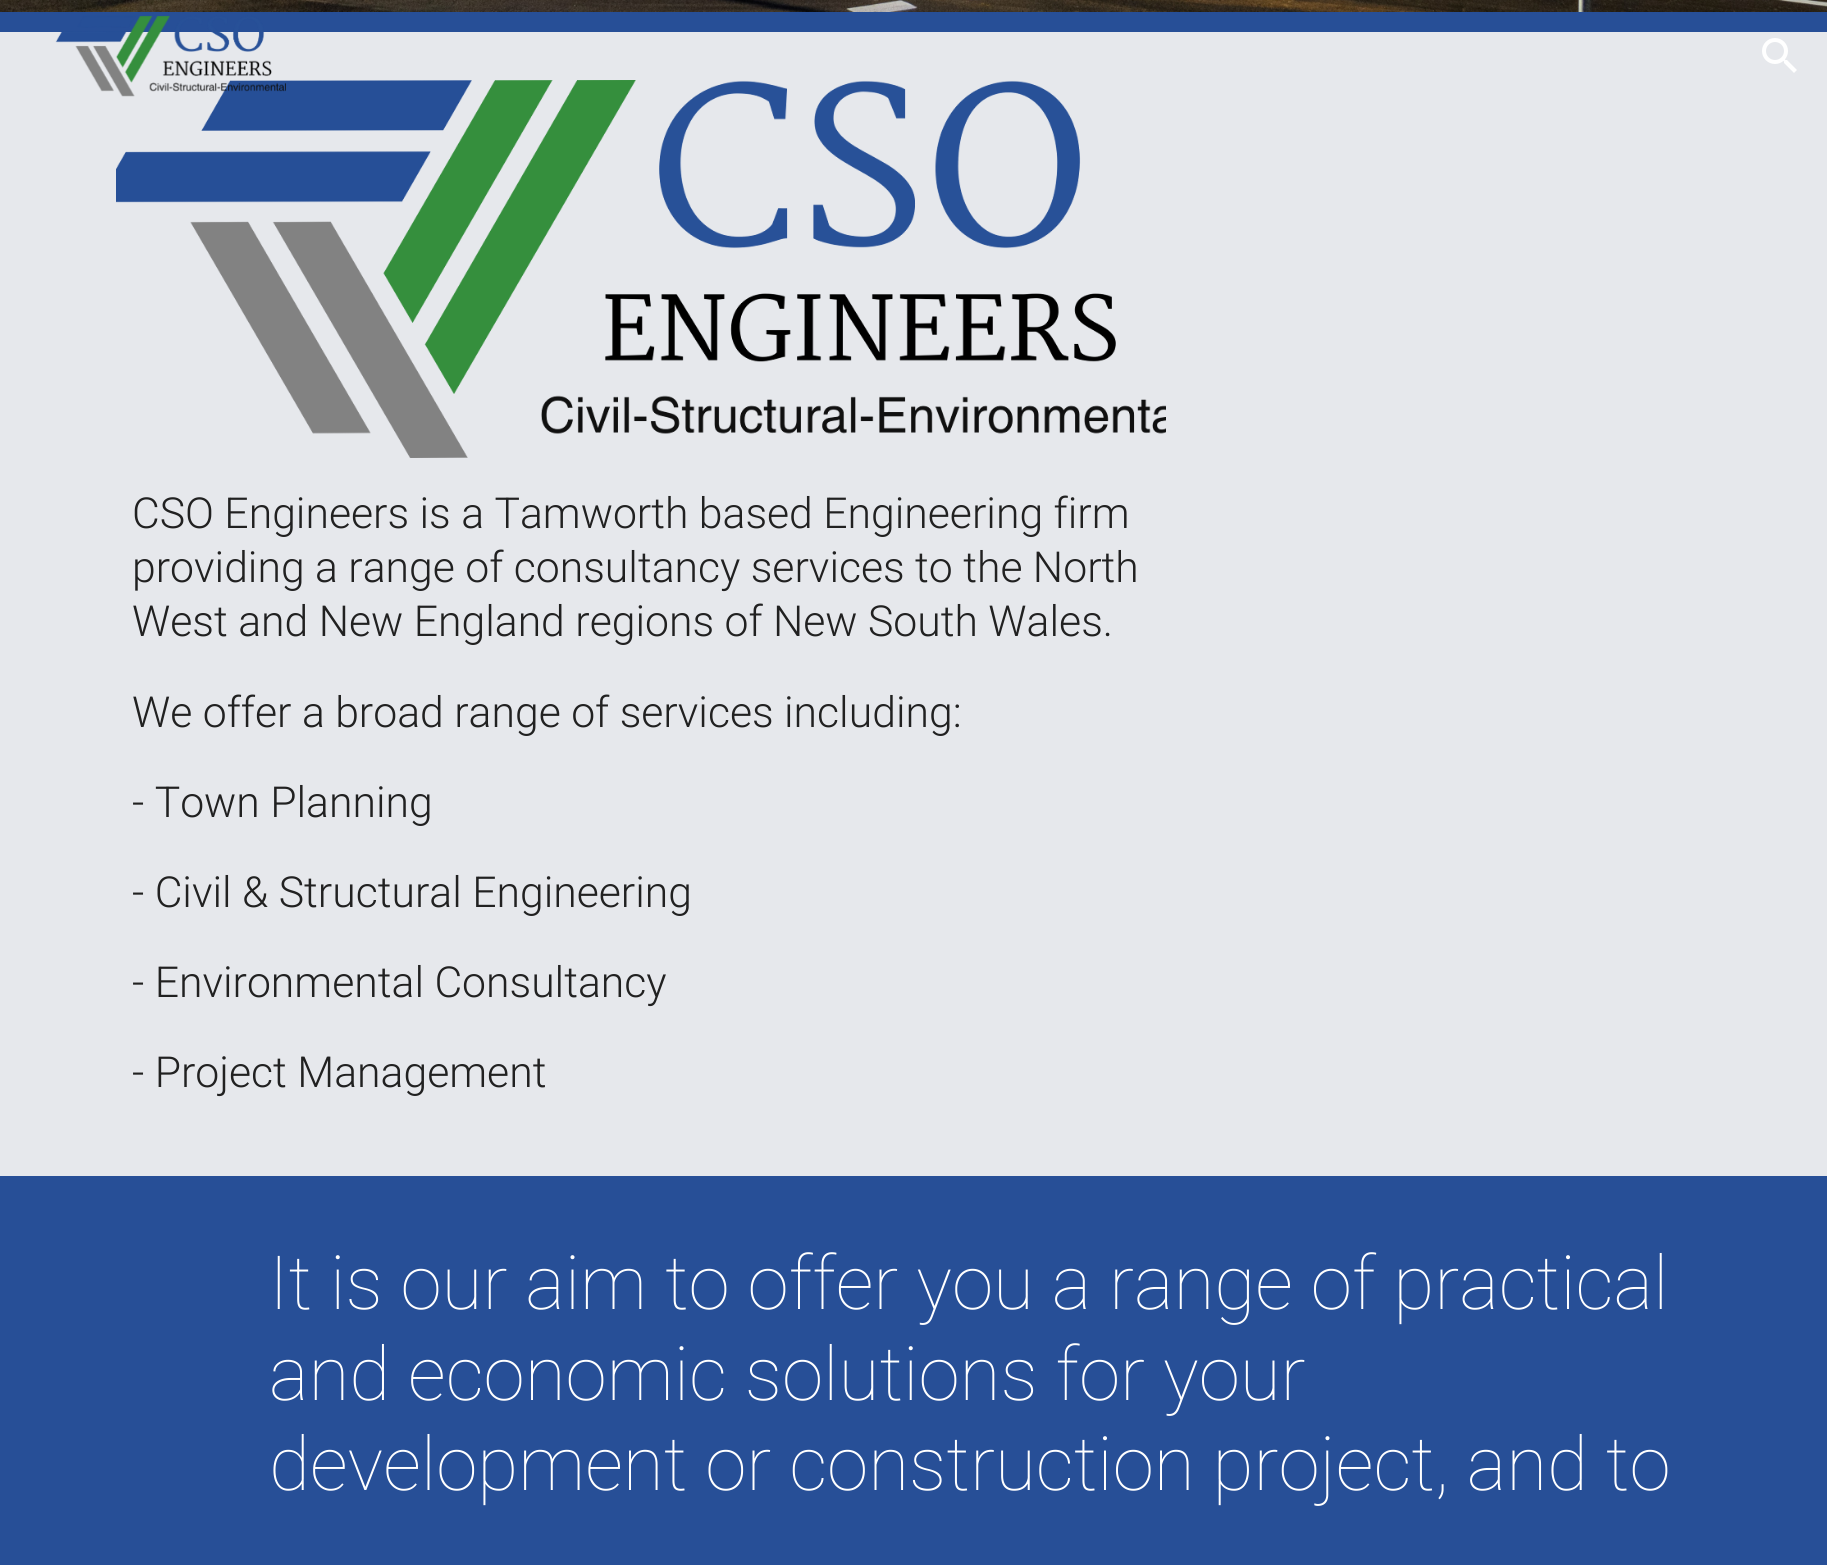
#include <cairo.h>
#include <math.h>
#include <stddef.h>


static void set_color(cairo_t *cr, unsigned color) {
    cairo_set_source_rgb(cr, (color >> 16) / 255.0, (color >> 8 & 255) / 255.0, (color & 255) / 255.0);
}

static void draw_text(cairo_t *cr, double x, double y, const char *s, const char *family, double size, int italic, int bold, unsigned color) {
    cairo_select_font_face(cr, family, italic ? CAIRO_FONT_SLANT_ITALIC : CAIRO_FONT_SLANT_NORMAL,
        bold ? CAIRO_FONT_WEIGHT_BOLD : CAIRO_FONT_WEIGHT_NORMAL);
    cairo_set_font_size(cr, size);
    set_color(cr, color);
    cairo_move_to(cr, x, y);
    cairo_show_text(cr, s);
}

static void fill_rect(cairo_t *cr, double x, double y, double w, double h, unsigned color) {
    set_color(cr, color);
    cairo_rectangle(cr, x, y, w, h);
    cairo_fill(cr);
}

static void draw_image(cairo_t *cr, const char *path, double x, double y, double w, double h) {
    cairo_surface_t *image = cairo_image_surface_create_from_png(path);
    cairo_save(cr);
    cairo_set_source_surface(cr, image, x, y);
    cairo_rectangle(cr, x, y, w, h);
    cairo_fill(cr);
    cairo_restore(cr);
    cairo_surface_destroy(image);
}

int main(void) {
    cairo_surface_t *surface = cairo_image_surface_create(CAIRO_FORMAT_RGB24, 1827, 1565);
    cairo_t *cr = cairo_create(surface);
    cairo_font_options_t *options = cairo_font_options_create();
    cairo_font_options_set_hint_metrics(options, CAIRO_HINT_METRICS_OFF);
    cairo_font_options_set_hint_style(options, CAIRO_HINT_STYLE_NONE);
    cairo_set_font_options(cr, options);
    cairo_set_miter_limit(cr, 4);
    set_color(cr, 0xE6E8EC);
    cairo_paint(cr);
    fill_rect(cr, 0, 12, 1827, 20, 0x274F97);
    draw_image(cr, "assets/img4.png", 116, 80, 1050, 378);
    draw_image(cr, "assets/img1.png", 55, 15, 231, 82);
    draw_image(cr, "assets/img2.png", 1762, 38, 35, 35);
    draw_image(cr, "assets/img3.png", 0, 0, 1827, 12);
    draw_text(cr, 132, 528, "CSO Engineers is a Tamworth based Engineering firm", "Roboto Light", 42.7, 0, 0, 0x212121);
    draw_text(cr, 132, 582, "providing a range of consultancy services to the North", "Roboto Light", 42.7, 0, 0, 0x212121);
    draw_text(cr, 132, 636, "West and New England regions of New South Wales.", "Roboto Light", 42.7, 0, 0, 0x212121);
    draw_text(cr, 132, 727, "We offer a broad range of services including:", "Roboto Light", 42.7, 0, 0, 0x212121);
    draw_text(cr, 132, 817, "- Town Planning", "Roboto Light", 42.7, 0, 0, 0x212121);
    draw_text(cr, 132, 907, "- Civil & Structural Engineering", "Roboto Light", 42.7, 0, 0, 0x212121);
    draw_text(cr, 132, 997, "- Environmental Consultancy", "Roboto Light", 42.7, 0, 0, 0x212121);
    draw_text(cr, 132, 1087, "- Project Management", "Roboto Light", 42.7, 0, 0, 0x212121);
    fill_rect(cr, 0, 1176, 1827, 389, 0x274F97);
    draw_text(cr, 269, 1309, "It is our aim to offer you a range of practical", "Roboto Thin", 74.7, 0, 0, 0xFFFFFF);
    draw_text(cr, 269, 1400, "and economic solutions for your", "Roboto Thin", 74.7, 0, 0, 0xFFFFFF);
    draw_text(cr, 269, 1490, "development or construction project, and to", "Roboto Thin", 74.7, 0, 0, 0xFFFFFF);
    cairo_surface_write_to_png(surface, "output.png");
    cairo_font_options_destroy(options);
    cairo_destroy(cr);
    cairo_surface_destroy(surface);
    return 0;
}
